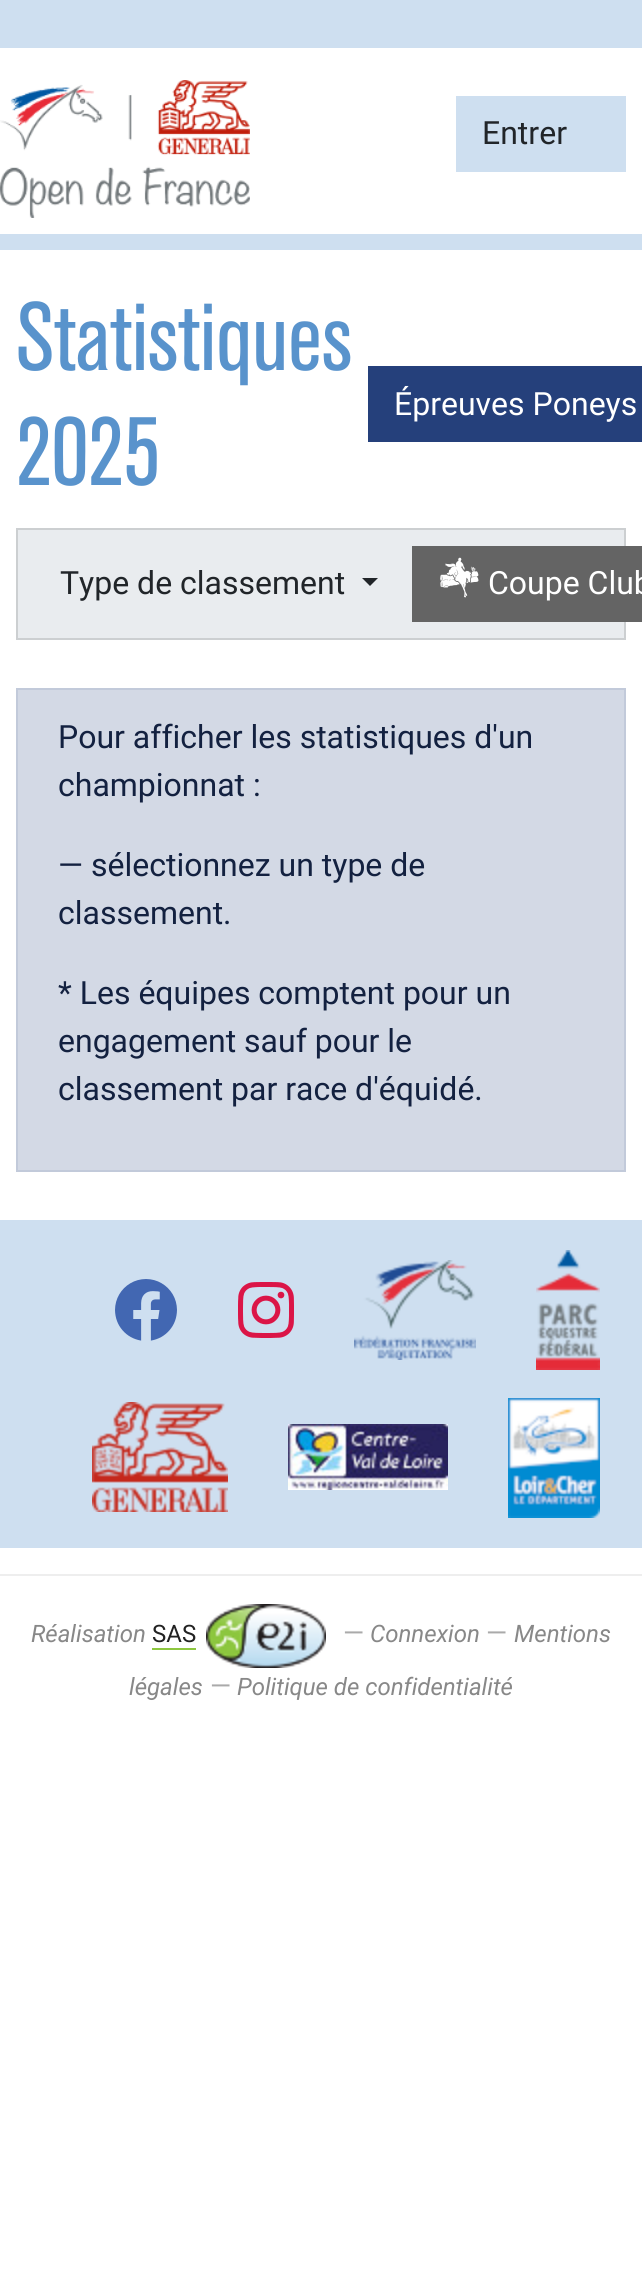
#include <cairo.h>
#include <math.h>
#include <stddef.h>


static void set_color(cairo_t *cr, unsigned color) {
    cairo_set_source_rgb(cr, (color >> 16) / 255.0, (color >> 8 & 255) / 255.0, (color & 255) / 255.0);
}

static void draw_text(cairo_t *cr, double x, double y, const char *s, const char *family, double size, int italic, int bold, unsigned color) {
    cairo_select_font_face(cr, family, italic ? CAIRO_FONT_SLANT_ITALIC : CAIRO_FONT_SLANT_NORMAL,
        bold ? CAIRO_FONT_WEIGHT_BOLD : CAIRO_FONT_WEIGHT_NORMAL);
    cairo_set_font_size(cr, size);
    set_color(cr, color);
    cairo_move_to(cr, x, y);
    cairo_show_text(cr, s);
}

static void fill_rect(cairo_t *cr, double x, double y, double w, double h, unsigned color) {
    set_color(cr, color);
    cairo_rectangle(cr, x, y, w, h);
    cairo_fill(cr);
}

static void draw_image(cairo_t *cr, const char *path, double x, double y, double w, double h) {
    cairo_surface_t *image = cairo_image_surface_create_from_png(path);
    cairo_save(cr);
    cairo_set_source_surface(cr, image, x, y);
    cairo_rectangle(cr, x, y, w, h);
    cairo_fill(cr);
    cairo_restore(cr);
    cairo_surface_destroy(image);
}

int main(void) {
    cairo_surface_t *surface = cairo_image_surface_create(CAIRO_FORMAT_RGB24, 642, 2269);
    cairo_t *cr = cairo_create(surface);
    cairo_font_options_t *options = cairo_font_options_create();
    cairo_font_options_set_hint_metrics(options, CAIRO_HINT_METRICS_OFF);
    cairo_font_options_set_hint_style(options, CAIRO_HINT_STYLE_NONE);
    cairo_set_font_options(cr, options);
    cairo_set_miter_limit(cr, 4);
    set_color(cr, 0xFFFFFF);
    cairo_paint(cr);
    fill_rect(cr, 0, 0, 642, 48, 0xCEDFF0);
    draw_image(cr, "assets/img1.png", 0, 80, 250, 138);
    fill_rect(cr, 456, 96, 170, 76, 0xCEDFF0);
    draw_text(cr, 482, 144, "Entrer", "Roboto", 32, 0, 0, 0x212529);
    fill_rect(cr, 0, 234, 642, 16, 0xCEDFF0);
    draw_text(cr, 16, 370, "Statistiques", "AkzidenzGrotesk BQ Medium", 96, 0, 0, 0x5993CC);
    draw_text(cr, 16, 485, "2025", "AkzidenzGrotesk BQ Medium", 96, 0, 0, 0x5993CC);
    fill_rect(cr, 368, 366, 274, 76, 0x25407B);
    draw_text(cr, 394, 415, "Épreuves Poneys", "Roboto", 32, 0, 0, 0xFFFFFF);
    set_color(cr, 0xE9ECEF);
    cairo_rectangle(cr, 17, 529, 608, 110);
    cairo_fill_preserve(cr);
    set_color(cr, 0xCCCFD1);
    cairo_stroke(cr);
    draw_text(cr, 60, 594, "Type de classement", "Roboto", 32, 0, 0, 0x212529);
    cairo_new_path(cr);
    cairo_move_to(cr, 362, 578);
    cairo_line_to(cr, 378, 578);
    cairo_line_to(cr, 370, 586);
    cairo_close_path(cr);
    cairo_fill(cr);
    fill_rect(cr, 412, 546, 230, 76, 0x646464);
    draw_image(cr, "assets/img2.png", 440, 557, 39, 41);
    draw_text(cr, 488, 594, "Coupe Club", "Roboto", 32, 0, 0, 0xFFFFFF);
    set_color(cr, 0xD3D9E5);
    cairo_rectangle(cr, 17, 689, 608, 482);
    cairo_fill_preserve(cr);
    set_color(cr, 0xC2CADA);
    cairo_stroke(cr);
    draw_text(cr, 58, 748, "Pour afficher les statistiques d'un", "Roboto", 32, 0, 0, 0x132140);
    draw_text(cr, 58, 796, "championnat :", "Roboto", 32, 0, 0, 0x132140);
    draw_text(cr, 58, 876, "— sélectionnez un type de", "Roboto", 32, 0, 0, 0x132140);
    draw_text(cr, 58, 924, "classement.", "Roboto", 32, 0, 0, 0x132140);
    draw_text(cr, 58, 1004, "* Les équipes comptent pour un", "Roboto", 32, 0, 0, 0x132140);
    draw_text(cr, 58, 1052, "engagement sauf pour le", "Roboto", 32, 0, 0, 0x132140);
    draw_text(cr, 58, 1100, "classement par race d'équidé.", "Roboto", 32, 0, 0, 0x132140);
    fill_rect(cr, 0, 1220, 642, 328, 0xCEDFF0);
    draw_image(cr, "assets/img3.png", 115, 1279, 62, 62);
    draw_image(cr, "assets/img4.png", 238, 1282, 56, 56);
    draw_image(cr, "assets/img5.png", 354, 1260, 122, 100);
    draw_image(cr, "assets/img6.png", 536, 1250, 64, 120);
    draw_image(cr, "assets/img7.png", 92, 1402, 136, 110);
    draw_image(cr, "assets/img8.png", 288, 1424, 160, 66);
    draw_image(cr, "assets/img9.png", 508, 1398, 92, 120);
    fill_rect(cr, 0, 1574, 642, 2, 0xEEEEEE);
    draw_text(cr, 31, 1642, "Réalisation", "Roboto", 24, 1, 0, 0x888888);
    draw_text(cr, 152, 1642, "SAS", "Roboto", 24, 0, 0, 0x222222);
    fill_rect(cr, 152, 1648, 44, 2, 0x8DC73F);
    draw_image(cr, "assets/img10.png", 206, 1604, 120, 64);
    draw_text(cr, 343, 1642, "—", "Roboto", 27, 0, 0, 0xAAAAAA);
    draw_text(cr, 370, 1642, "Connexion", "Roboto", 24, 1, 0, 0x888888);
    draw_text(cr, 486, 1642, "—", "Roboto", 27, 0, 0, 0xAAAAAA);
    draw_text(cr, 514, 1642, "Mentions", "Roboto", 24, 1, 0, 0x888888);
    draw_text(cr, 129, 1695, "légales", "Roboto", 24, 1, 0, 0x888888);
    draw_text(cr, 210, 1695, "—", "Roboto", 27, 0, 0, 0xAAAAAA);
    draw_text(cr, 237, 1695, "Politique de confidentialité", "Roboto", 24, 1, 0, 0x888888);
    cairo_surface_write_to_png(surface, "output.png");
    cairo_font_options_destroy(options);
    cairo_destroy(cr);
    cairo_surface_destroy(surface);
    return 0;
}
